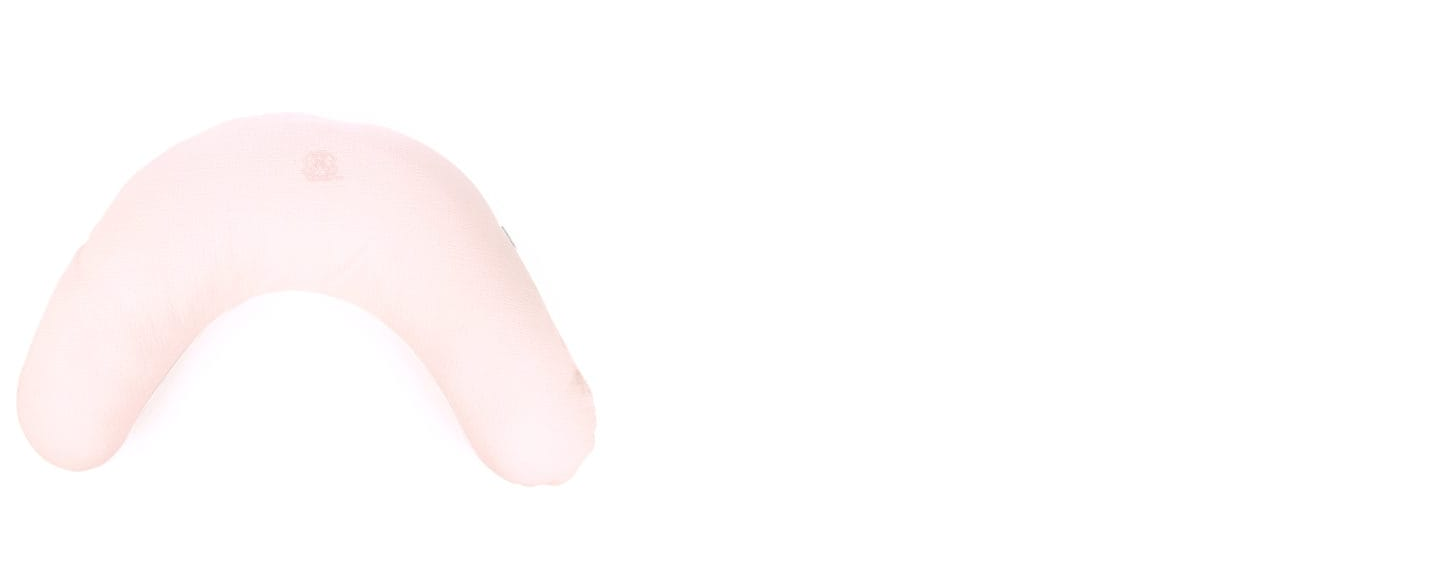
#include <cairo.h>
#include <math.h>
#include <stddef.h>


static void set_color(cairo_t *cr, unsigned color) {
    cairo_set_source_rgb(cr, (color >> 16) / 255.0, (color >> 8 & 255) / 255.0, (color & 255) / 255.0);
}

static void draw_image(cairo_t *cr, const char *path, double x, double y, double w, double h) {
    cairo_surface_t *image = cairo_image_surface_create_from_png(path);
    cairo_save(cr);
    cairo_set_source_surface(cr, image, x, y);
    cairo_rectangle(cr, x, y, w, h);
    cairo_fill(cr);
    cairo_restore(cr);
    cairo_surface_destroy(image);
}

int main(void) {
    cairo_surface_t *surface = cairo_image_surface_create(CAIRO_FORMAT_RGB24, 1448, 569);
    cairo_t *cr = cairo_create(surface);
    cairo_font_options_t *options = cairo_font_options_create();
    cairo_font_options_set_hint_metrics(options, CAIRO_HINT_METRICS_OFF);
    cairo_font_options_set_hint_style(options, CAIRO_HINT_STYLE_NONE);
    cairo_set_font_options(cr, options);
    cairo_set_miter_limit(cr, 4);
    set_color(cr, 0xFFFFFF);
    cairo_paint(cr);
    draw_image(cr, "assets/img1.png", 16, 112, 584, 376);
    cairo_surface_write_to_png(surface, "output.png");
    cairo_font_options_destroy(options);
    cairo_destroy(cr);
    cairo_surface_destroy(surface);
    return 0;
}
